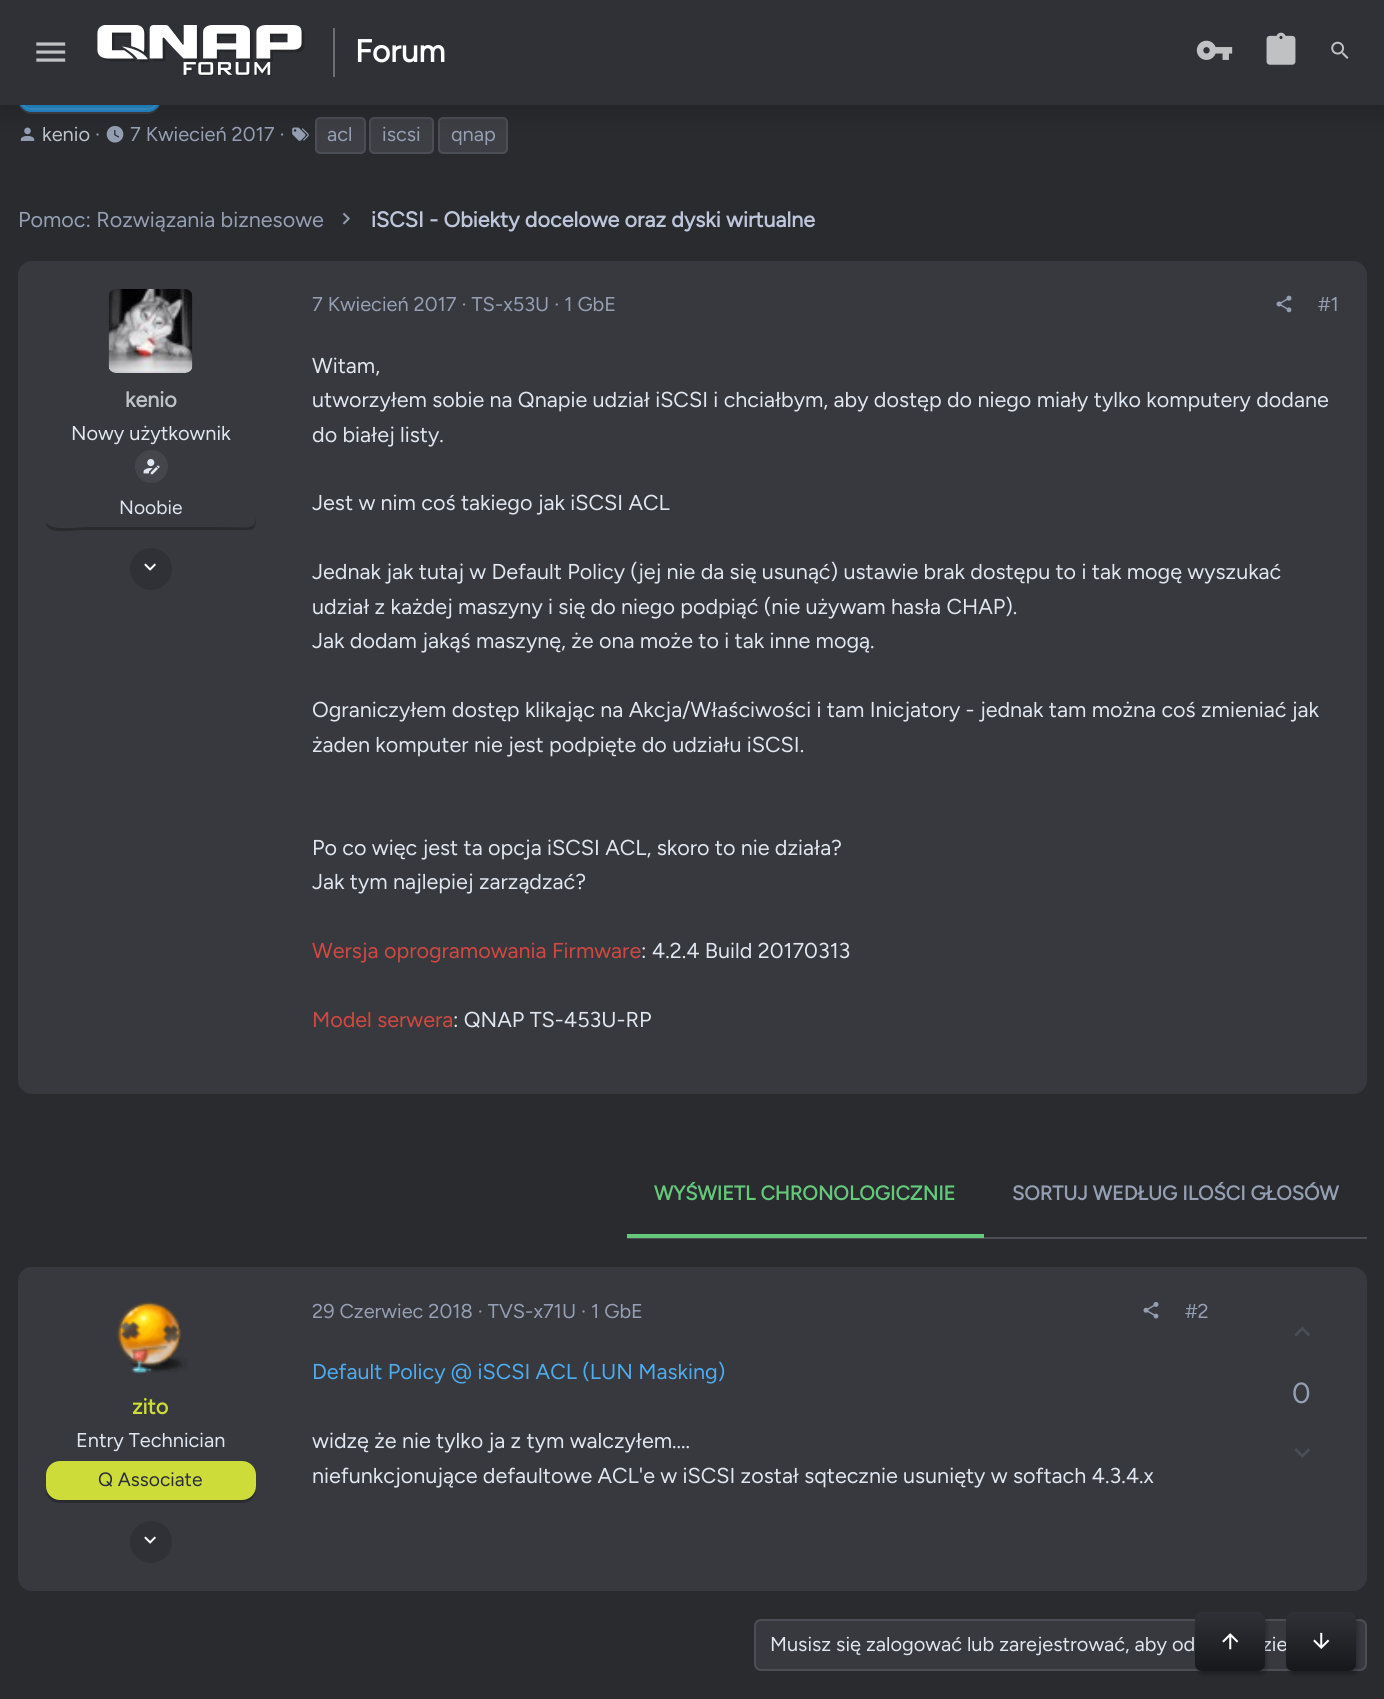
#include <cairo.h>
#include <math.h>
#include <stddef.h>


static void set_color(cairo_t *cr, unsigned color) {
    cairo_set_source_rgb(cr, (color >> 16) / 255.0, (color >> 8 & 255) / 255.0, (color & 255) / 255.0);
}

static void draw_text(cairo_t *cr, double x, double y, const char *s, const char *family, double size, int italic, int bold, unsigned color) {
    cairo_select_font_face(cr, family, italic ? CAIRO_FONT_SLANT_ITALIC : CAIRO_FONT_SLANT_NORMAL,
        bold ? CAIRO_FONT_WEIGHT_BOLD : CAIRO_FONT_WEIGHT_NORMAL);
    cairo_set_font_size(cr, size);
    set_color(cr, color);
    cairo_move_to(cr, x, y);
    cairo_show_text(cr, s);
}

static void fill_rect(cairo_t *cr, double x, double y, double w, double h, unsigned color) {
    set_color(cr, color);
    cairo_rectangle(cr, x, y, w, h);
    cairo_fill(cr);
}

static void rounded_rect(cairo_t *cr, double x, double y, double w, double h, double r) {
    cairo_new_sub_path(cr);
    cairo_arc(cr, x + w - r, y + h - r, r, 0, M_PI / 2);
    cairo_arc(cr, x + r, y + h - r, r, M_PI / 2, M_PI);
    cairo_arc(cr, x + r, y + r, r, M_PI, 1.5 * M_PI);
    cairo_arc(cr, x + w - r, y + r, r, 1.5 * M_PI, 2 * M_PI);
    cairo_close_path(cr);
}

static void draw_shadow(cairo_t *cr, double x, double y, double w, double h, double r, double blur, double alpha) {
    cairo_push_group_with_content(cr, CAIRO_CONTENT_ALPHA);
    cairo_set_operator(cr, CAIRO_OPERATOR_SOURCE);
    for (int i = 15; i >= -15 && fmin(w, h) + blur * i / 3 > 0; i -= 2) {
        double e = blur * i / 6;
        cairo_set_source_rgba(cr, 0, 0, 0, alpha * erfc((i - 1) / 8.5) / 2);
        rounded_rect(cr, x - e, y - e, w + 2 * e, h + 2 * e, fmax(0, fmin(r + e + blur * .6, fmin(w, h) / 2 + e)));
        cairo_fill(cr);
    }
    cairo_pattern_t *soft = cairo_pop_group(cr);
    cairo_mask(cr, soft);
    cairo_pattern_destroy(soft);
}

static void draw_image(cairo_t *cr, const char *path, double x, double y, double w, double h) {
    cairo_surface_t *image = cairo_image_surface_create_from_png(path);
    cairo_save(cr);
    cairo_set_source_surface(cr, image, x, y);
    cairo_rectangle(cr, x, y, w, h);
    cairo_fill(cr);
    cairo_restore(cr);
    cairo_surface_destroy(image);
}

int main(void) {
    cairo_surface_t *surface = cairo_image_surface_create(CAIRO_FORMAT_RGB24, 1384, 1699);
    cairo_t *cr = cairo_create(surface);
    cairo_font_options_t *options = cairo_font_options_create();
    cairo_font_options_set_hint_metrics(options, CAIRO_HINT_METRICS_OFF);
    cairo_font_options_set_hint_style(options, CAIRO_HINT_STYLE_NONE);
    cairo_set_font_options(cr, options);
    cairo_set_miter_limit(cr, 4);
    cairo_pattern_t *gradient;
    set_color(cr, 0x292B2F);
    cairo_paint(cr);
    set_color(cr, 0x3E4044);
    cairo_new_path(cr);
    cairo_move_to(cr, 18, 102);
    cairo_curve_to(cr, 19, 109, 25, 114, 32, 114);
    cairo_line_to(cr, 147, 114);
    cairo_curve_to(cr, 155, 114, 161, 108, 161, 100);
    cairo_line_to(cr, 161, 98);
    cairo_curve_to(cr, 161, 106, 155, 112, 147, 112);
    cairo_line_to(cr, 32, 112);
    cairo_curve_to(cr, 25, 112, 20, 108, 18, 102);
    cairo_close_path(cr);
    cairo_fill(cr);
    set_color(cr, 0x248BCE);
    rounded_rect(cr, 18, 53, 143, 59, 14);
    cairo_fill(cr);
    set_color(cr, 0x3A97D3);
    cairo_new_path(cr);
    cairo_move_to(cr, 19, 96);
    cairo_curve_to(cr, 19, 114, 37, 110, 50, 110);
    cairo_line_to(cr, 128, 110);
    cairo_curve_to(cr, 141, 110, 159, 114, 159, 96);
    cairo_curve_to(cr, 159, 103, 154, 108, 147, 108);
    cairo_line_to(cr, 32, 108);
    cairo_curve_to(cr, 25, 108, 19, 103, 19, 96);
    cairo_close_path(cr);
    cairo_fill(cr);
    cairo_set_source_rgba(cr, 1, 1, 1, 0.1);
    cairo_new_path(cr);
    cairo_move_to(cr, 145, 110);
    cairo_curve_to(cr, 162, 110, 159, 94, 159, 82);
    cairo_curve_to(cr, 159, 70, 162, 54, 145, 54);
    cairo_curve_to(cr, 152, 54, 158, 60, 158, 66);
    cairo_line_to(cr, 158, 98);
    cairo_curve_to(cr, 158, 105, 152, 110, 145, 110);
    cairo_close_path(cr);
    cairo_fill(cr);
    cairo_new_path(cr);
    cairo_move_to(cr, 31, 54);
    cairo_curve_to(cr, 16, 54, 19, 72, 19, 82);
    cairo_curve_to(cr, 19, 94, 16, 110, 33, 110);
    cairo_curve_to(cr, 18, 110, 21, 92, 21, 82);
    cairo_curve_to(cr, 21, 72, 18, 54, 33, 54);
    cairo_close_path(cr);
    cairo_fill(cr);
    rounded_rect(cr, 19, 54, 141, 57, 13);
    set_color(cr, 0x248BCE);
    cairo_stroke(cr);
    draw_image(cr, "assets/img6.png", 20, 127, 15, 14);
    draw_image(cr, "assets/img7.png", 106, 125, 18, 18);
    draw_image(cr, "assets/img8.png", 292, 127, 17, 14);
    set_color(cr, 0x3D3F44);
    rounded_rect(cr, 316, 118, 49, 35, 4);
    cairo_fill_preserve(cr);
    set_color(cr, 0x4B4E54);
    cairo_stroke(cr);
    set_color(cr, 0x3D3F44);
    rounded_rect(cr, 370, 118, 63, 35, 4);
    cairo_fill_preserve(cr);
    set_color(cr, 0x4B4E54);
    cairo_stroke(cr);
    set_color(cr, 0x3D3F44);
    rounded_rect(cr, 439, 118, 68, 35, 4);
    cairo_fill_preserve(cr);
    set_color(cr, 0x4B4E54);
    cairo_stroke(cr);
    set_color(cr, 0x000000);
    draw_shadow(cr, 0, 7, 1384, 105, 0, 13, 0.2);
    fill_rect(cr, 0, 0, 1384, 105, 0x2F3136);
    draw_image(cr, "assets/img1.png", 36, 42, 30, 20);
    draw_image(cr, "assets/img2.png", 97, 25, 208, 51);
    fill_rect(cr, 333, 28, 2, 49, 0x6D6F72);
    draw_text(cr, 355, 62, "Forum", "Figtree", 31.5, 0, 1, 0xFFFFFF);
    draw_image(cr, "assets/img3.png", 1196, 40, 37, 20);
    draw_image(cr, "assets/img4.png", 1266, 32, 30, 33);
    draw_image(cr, "assets/img5.png", 1331, 41, 18, 18);
    draw_text(cr, 42, 141, "kenio", "Figtree Light", 20, 0, 0, 0xBDC3C7);
    draw_text(cr, 95, 141, "·", "Figtree Light", 20, 0, 0, 0x959FB4);
    draw_text(cr, 130, 141, "7 Kwiecień 2017 ·", "Figtree Light", 20, 0, 0, 0x959FB4);
    draw_text(cr, 327, 141, "acl", "Figtree Light", 20, 0, 0, 0x959FB4);
    draw_text(cr, 382, 141, "iscsi", "Figtree Light", 20, 0, 0, 0x959FB4);
    draw_text(cr, 451, 141, "qnap", "Figtree Light", 20, 0, 0, 0x959FB4);
    draw_text(cr, 18, 227, "Pomoc: Rozwiązania biznesowe", "Figtree Light", 21.55, 0, 0, 0x959FB4);
    draw_image(cr, "assets/img9.png", 342, 212, 8, 13);
    draw_text(cr, 371, 227, "iSCSI - Obiekty docelowe oraz dyski wirtualne", "Figtree", 21.55, 0, 1, 0xBDC6DB);
    set_color(cr, 0x37393E);
    rounded_rect(cr, 18, 261, 1349, 833, 14);
    cairo_fill(cr);
    draw_image(cr, "assets/img10.png", 108, 289, 85, 84);
    draw_text(cr, 125, 407, "kenio", "Figtree", 21.55, 0, 1, 0xBDC3C7);
    draw_text(cr, 71, 440, "Nowy użytkownik", "Figtree Light", 20, 0, 0, 0xE0E6F0);
    set_color(cr, 0x44464C);
    cairo_new_path(cr);
    cairo_arc(cr, 151.5, 466.5, 16.5, 0, 2 * M_PI);
    cairo_fill(cr);
    draw_image(cr, "assets/img11.png", 143, 459, 17, 16);
    set_color(cr, 0x292B2F);
    cairo_new_path(cr);
    cairo_move_to(cr, 46, 522);
    cairo_curve_to(cr, 46, 536, 71, 530, 86, 530);
    cairo_line_to(cr, 249, 530);
    cairo_curve_to(cr, 257, 530, 256, 520, 256, 515);
    cairo_line_to(cr, 256, 496);
    cairo_curve_to(cr, 256, 534, 260, 527, 216, 527);
    cairo_line_to(cr, 85, 527);
    cairo_curve_to(cr, 82, 527, 50, 532, 46, 522);
    cairo_close_path(cr);
    cairo_fill(cr);
    draw_text(cr, 119, 514, "Noobie", "Figtree Light", 19.25, 0, 0, 0xE0E6F0);
    set_color(cr, 0x2F3136);
    cairo_new_path(cr);
    cairo_arc(cr, 151, 569, 21, 0, 2 * M_PI);
    cairo_fill(cr);
    draw_image(cr, "assets/img12.png", 144, 563, 12, 8);
    draw_text(cr, 312, 311, "7 Kwiecień 2017 · TS-x53U · 1 GbE", "Figtree Light", 20, 0, 0, 0x959FB4);
    draw_image(cr, "assets/img13.png", 1276, 295, 16, 18);
    draw_text(cr, 1318, 311, "#1", "Figtree Light", 20, 0, 0, 0x959FB4);
    draw_text(cr, 312, 373, "Witam,", "Figtree Light", 21.55, 0, 0, 0xE0E6F0);
    draw_text(cr, 312, 407, "utworzyłem sobie na Qnapie udział iSCSI i chciałbym, aby dostęp do niego miały tylko komputery dodane", "Figtree Light", 21.55, 0, 0, 0xE0E6F0);
    draw_text(cr, 312, 442, "do białej listy.", "Figtree Light", 21.55, 0, 0, 0xE0E6F0);
    draw_text(cr, 312, 510, "Jest w nim coś takiego jak iSCSI ACL", "Figtree Light", 21.55, 0, 0, 0xE0E6F0);
    draw_text(cr, 312, 579, "Jednak jak tutaj w Default Policy (jej nie da się usunąć) ustawie brak dostępu to i tak mogę wyszukać", "Figtree Light", 21.55, 0, 0, 0xE0E6F0);
    draw_text(cr, 312, 614, "udział z każdej maszyny i się do niego podpiąć (nie używam hasła CHAP).", "Figtree Light", 21.55, 0, 0, 0xE0E6F0);
    draw_text(cr, 312, 648, "Jak dodam jakąś maszynę, że ona może to i tak inne mogą.", "Figtree Light", 21.55, 0, 0, 0xE0E6F0);
    draw_text(cr, 312, 717, "Ograniczyłem dostęp klikając na Akcja/Właściwości i tam Inicjatory - jednak tam można coś zmieniać jak", "Figtree Light", 21.55, 0, 0, 0xE0E6F0);
    draw_text(cr, 312, 752, "żaden komputer nie jest podpięte do udziału iSCSI.", "Figtree Light", 21.55, 0, 0, 0xE0E6F0);
    draw_text(cr, 312, 855, "Po co więc jest ta opcja iSCSI ACL, skoro to nie działa?", "Figtree Light", 21.55, 0, 0, 0xE0E6F0);
    draw_text(cr, 312, 889, "Jak tym najlepiej zarządzać?", "Figtree Light", 21.55, 0, 0, 0xE0E6F0);
    draw_text(cr, 312, 958, "Wersja oprogramowania Firmware", "Figtree Light", 21.55, 0, 0, 0xD14841);
    draw_text(cr, 641, 958, ": 4.2.4 Build 20170313", "Figtree Light", 21.55, 0, 0, 0xE0E6F0);
    draw_text(cr, 312, 1027, "Model serwera", "Figtree Light", 21.55, 0, 0, 0xD14841);
    draw_text(cr, 453, 1027, ": QNAP TS-453U-RP", "Figtree Light", 21.55, 0, 0, 0xE0E6F0);
    fill_rect(cr, 627, 1237, 740, 2, 0x4B4E54);
    fill_rect(cr, 627, 1234, 357, 4, 0x65C97A);
    draw_text(cr, 654, 1200, "WYŚWIETL CHRONOLOGICZNIE", "Figtree", 20, 0, 1, 0x65C97A);
    draw_text(cr, 1012, 1200, "SORTUJ WEDŁUG ILOŚCI GŁOSÓW", "Figtree", 20, 0, 1, 0x959FB4);
    set_color(cr, 0x37393E);
    rounded_rect(cr, 18, 1267, 1349, 324, 14);
    cairo_fill(cr);
    draw_text(cr, 312, 1318, "29 Czerwiec 2018 · TVS-x71U · 1 GbE", "Figtree Light", 20, 0, 0, 0x959FB4);
    draw_image(cr, "assets/img14.png", 1143, 1302, 16, 17);
    draw_text(cr, 1185, 1318, "#2", "Figtree Light", 20, 0, 0, 0x959FB4);
    draw_text(cr, 312, 1379, "Default Policy @ iSCSI ACL (LUN Masking)", "Figtree Light", 21.55, 0, 0, 0x4EACEE);
    draw_text(cr, 312, 1448, "widzę że nie tylko ja z tym walczyłem....", "Figtree Light", 21.55, 0, 0, 0xE0E6F0);
    draw_text(cr, 312, 1483, "niefunkcjonujące defaultowe ACL'e w iSCSI został sqtecznie usunięty w softach 4.3.4.x", "Figtree Light", 21.55, 0, 0, 0xE0E6F0);
    draw_image(cr, "assets/img15.png", 1294, 1326, 16, 11);
    draw_text(cr, 1292, 1403, "0", "Figtree Light", 29, 0, 0, 0x959FB4);
    draw_image(cr, "assets/img16.png", 1294, 1448, 16, 10);
    draw_image(cr, "assets/img17.png", 116, 1301, 72, 73);
    draw_text(cr, 132, 1414, "zito", "Figtree", 21.55, 0, 1, 0xCDDC39);
    draw_text(cr, 76, 1447, "Entry Technician", "Figtree Light", 20, 0, 0, 0xE0E6F0);
    set_color(cr, 0x292B2F);
    cairo_new_path(cr);
    cairo_move_to(cr, 46, 1490);
    cairo_curve_to(cr, 46, 1497, 52, 1503, 60, 1503);
    cairo_line_to(cr, 242, 1503);
    cairo_curve_to(cr, 250, 1503, 256, 1497, 256, 1489);
    cairo_line_to(cr, 256, 1479);
    cairo_line_to(cr, 256, 1475);
    cairo_line_to(cr, 256, 1486);
    cairo_curve_to(cr, 256, 1493, 249, 1500, 242, 1500);
    cairo_line_to(cr, 60, 1500);
    cairo_curve_to(cr, 53, 1500, 48, 1495, 46, 1490);
    cairo_close_path(cr);
    cairo_fill(cr);
    set_color(cr, 0xCDDC39);
    rounded_rect(cr, 47, 1462, 208, 37, 13);
    cairo_fill_preserve(cr);
    cairo_stroke(cr);
    draw_text(cr, 98, 1486, "Q Associate", "Figtree Light", 19.25, 0, 0, 0x292E39);
    set_color(cr, 0x2F3136);
    cairo_new_path(cr);
    cairo_arc(cr, 151, 1542, 21, 0, 2 * M_PI);
    cairo_fill(cr);
    draw_image(cr, "assets/img12.png", 144, 1536, 12, 8);
    set_color(cr, 0x37393E);
    rounded_rect(cr, 755, 1620, 611, 50, 6);
    cairo_fill_preserve(cr);
    set_color(cr, 0x4B4E54);
    cairo_stroke(cr);
    draw_text(cr, 770, 1651, "Musisz się zalogować lub zarejestrować, aby od", "Figtree Light", 20, 0, 0, 0xE0E6F0);
    draw_text(cr, 1262, 1651, "zie", "Figtree Light", 20, 0, 0, 0xE0E6F0);
    set_color(cr, 0x000000);
    draw_shadow(cr, 1197, 1615, 70, 60, 7, 2, 0.25);
    gradient = cairo_pattern_create_linear(1230, 1612, 1230, 1671);
    cairo_pattern_add_color_stop_rgba(gradient, 0, 0.184, 0.192, 0.212, 1);
    cairo_pattern_add_color_stop_rgba(gradient, 1, 0.09, 0.094, 0.106, 1);
    cairo_set_source(cr, gradient);
    cairo_pattern_destroy(gradient);
    rounded_rect(cr, 1195, 1612, 70, 59, 7);
    cairo_fill(cr);
    draw_image(cr, "assets/img18.png", 1222, 1633, 17, 17);
    set_color(cr, 0x000000);
    draw_shadow(cr, 1288, 1615, 70, 60, 7, 2, 0.25);
    gradient = cairo_pattern_create_linear(1321, 1612, 1321, 1671);
    cairo_pattern_add_color_stop_rgba(gradient, 0, 0.184, 0.192, 0.212, 1);
    cairo_pattern_add_color_stop_rgba(gradient, 1, 0.09, 0.094, 0.106, 1);
    cairo_set_source(cr, gradient);
    cairo_pattern_destroy(gradient);
    rounded_rect(cr, 1286, 1612, 70, 59, 7);
    cairo_fill(cr);
    draw_image(cr, "assets/img19.png", 1313, 1632, 17, 17);
    cairo_surface_write_to_png(surface, "output.png");
    cairo_font_options_destroy(options);
    cairo_destroy(cr);
    cairo_surface_destroy(surface);
    return 0;
}
